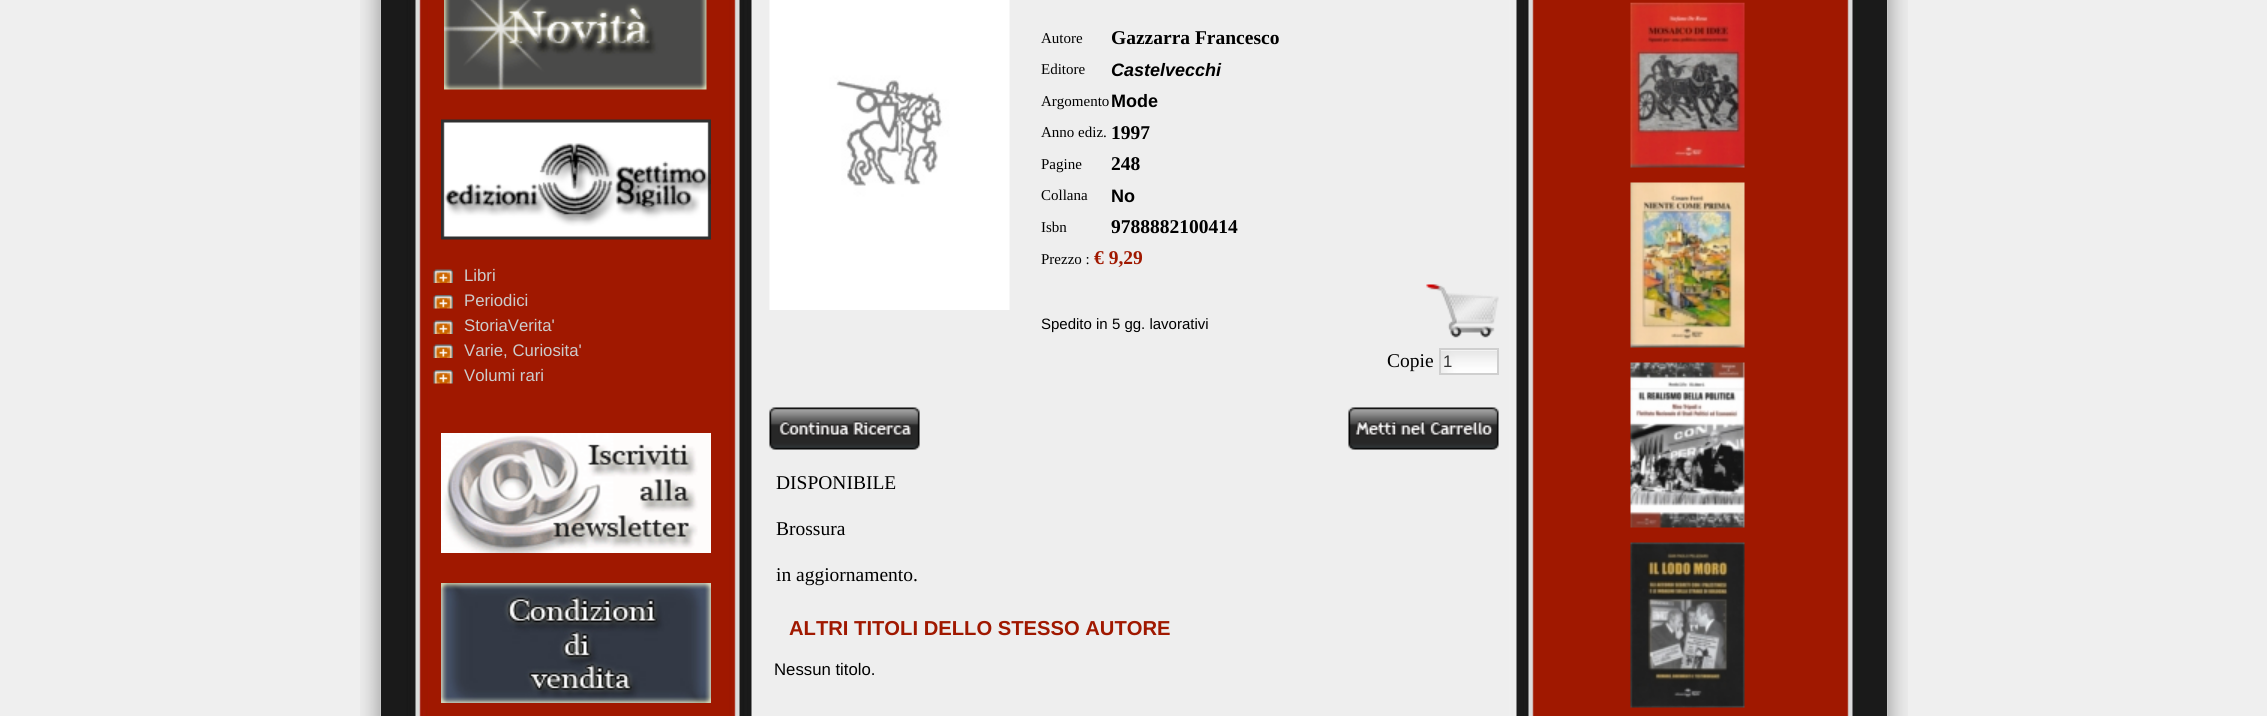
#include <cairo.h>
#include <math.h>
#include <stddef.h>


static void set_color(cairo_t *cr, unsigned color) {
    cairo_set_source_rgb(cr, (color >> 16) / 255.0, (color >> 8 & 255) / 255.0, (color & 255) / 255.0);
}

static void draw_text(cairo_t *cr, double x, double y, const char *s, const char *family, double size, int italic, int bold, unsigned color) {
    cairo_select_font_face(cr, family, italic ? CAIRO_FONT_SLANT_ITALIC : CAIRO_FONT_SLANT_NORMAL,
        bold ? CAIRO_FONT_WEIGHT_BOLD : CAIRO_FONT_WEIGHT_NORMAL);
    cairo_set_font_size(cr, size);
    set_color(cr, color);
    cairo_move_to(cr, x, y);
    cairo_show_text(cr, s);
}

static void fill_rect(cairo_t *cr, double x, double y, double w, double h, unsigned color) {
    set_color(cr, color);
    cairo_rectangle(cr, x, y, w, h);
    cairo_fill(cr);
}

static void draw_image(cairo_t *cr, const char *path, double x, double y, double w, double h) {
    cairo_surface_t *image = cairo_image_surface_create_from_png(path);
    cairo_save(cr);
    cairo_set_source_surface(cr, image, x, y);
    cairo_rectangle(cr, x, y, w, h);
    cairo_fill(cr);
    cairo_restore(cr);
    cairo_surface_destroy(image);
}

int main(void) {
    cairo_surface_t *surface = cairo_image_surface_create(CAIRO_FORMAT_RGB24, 2267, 716);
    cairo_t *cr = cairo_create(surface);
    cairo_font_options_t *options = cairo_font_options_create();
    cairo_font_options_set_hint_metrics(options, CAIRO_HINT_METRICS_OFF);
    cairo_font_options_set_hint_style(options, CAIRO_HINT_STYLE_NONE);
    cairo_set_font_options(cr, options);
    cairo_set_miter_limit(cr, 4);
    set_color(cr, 0xEFEFEF);
    cairo_paint(cr);
    draw_image(cr, "assets/img1.png", 360, 0, 1548, 716);
    draw_image(cr, "assets/img2.png", 381, 0, 1506, 716);
    fill_rect(cr, 423, 0, 4, 710, 0xA01800);
    draw_image(cr, "assets/img3.png", 444, 0, 263, 90);
    draw_image(cr, "assets/img4.png", 441, 119, 270, 121);
    draw_image(cr, "assets/img5.png", 433, 269, 20, 14);
    draw_text(cr, 464, 281, "Libri", "Liberation Sans", 16.75, 0, 0, 0xCCCCCC);
    draw_image(cr, "assets/img6.png", 433, 295, 20, 14);
    draw_text(cr, 464, 306, "Periodici", "Liberation Sans", 16.75, 0, 0, 0xCCCCCC);
    draw_image(cr, "assets/img5.png", 433, 320, 20, 14);
    draw_text(cr, 464, 331, "StoriaVerita'", "Liberation Sans", 16.75, 0, 0, 0xCCCCCC);
    draw_image(cr, "assets/img5.png", 433, 344, 20, 14);
    draw_text(cr, 464, 356, "Varie, Curiosita'", "Liberation Sans", 16.75, 0, 0, 0xCCCCCC);
    draw_image(cr, "assets/img6.png", 433, 370, 20, 14);
    draw_text(cr, 464, 381, "Volumi rari", "Liberation Sans", 16.75, 0, 0, 0xCCCCCC);
    draw_image(cr, "assets/img7.png", 441, 433, 270, 120);
    draw_image(cr, "assets/img8.png", 441, 583, 270, 120);
    draw_image(cr, "assets/img9.png", 769, 0, 241, 310);
    draw_text(cr, 1041, 43, "Autore", "Liberation Serif", 15, 0, 0, 0x000000);
    draw_text(cr, 1111, 44, "Gazzarra Francesco", "Liberation Serif", 19.5, 0, 1, 0x000000);
    draw_text(cr, 1041, 74, "Editore", "Liberation Serif", 15, 0, 0, 0x000000);
    draw_text(cr, 1111, 76, "Castelvecchi", "Liberation Sans", 18, 1, 1, 0x000000);
    draw_text(cr, 1041, 106, "Argomento", "Liberation Serif", 15, 0, 0, 0x000000);
    draw_text(cr, 1111, 107, "Mode", "Liberation Sans", 18, 0, 1, 0x000000);
    draw_text(cr, 1041, 137, "Anno ediz.", "Liberation Serif", 15, 0, 0, 0x000000);
    draw_text(cr, 1111, 139, "1997", "Liberation Serif", 19.5, 0, 1, 0x000000);
    draw_text(cr, 1041, 169, "Pagine", "Liberation Serif", 15, 0, 0, 0x000000);
    draw_text(cr, 1111, 170, "248", "Liberation Serif", 19.5, 0, 1, 0x000000);
    draw_text(cr, 1041, 200, "Collana", "Liberation Serif", 15, 0, 0, 0x000000);
    draw_text(cr, 1111, 202, "No", "Liberation Sans", 18, 0, 1, 0x000000);
    draw_text(cr, 1041, 232, "Isbn", "Liberation Serif", 15, 0, 0, 0x000000);
    draw_text(cr, 1111, 233, "9788882100414", "Liberation Serif", 19.5, 0, 1, 0x000000);
    draw_text(cr, 1041, 264, "Prezzo :", "Liberation Serif", 15, 0, 0, 0x000000);
    draw_text(cr, 1094, 264, "€ 9,29", "Liberation Serif", 19.5, 0, 1, 0xA01800);
    draw_text(cr, 1041, 329, "Spedito in 5 gg. lavorativi", "Liberation Sans", 15, 0, 0, 0x000000);
    draw_image(cr, "assets/img10.png", 1426, 284, 73, 54);
    draw_text(cr, 1387, 367, "Copie", "Liberation Serif", 19.5, 0, 0, 0x000000);
    draw_image(cr, "assets/img11.png", 1441, 350, 56, 23);
    cairo_rectangle(cr, 1440, 349, 58, 25);
    set_color(cr, 0xCFCFCF);
    cairo_stroke(cr);
    draw_text(cr, 1443, 367, "1", "Liberation Sans", 16.75, 0, 0, 0x333333);
    draw_image(cr, "assets/img12.png", 769, 407, 151, 43);
    draw_image(cr, "assets/img13.png", 1348, 407, 151, 43);
    draw_text(cr, 776, 489, "DISPONIBILE", "Liberation Serif", 19.5, 0, 0, 0x000000);
    draw_text(cr, 776, 535, "Brossura", "Liberation Serif", 19.5, 0, 0, 0x000000);
    draw_text(cr, 776, 581, "in aggiornamento.", "Liberation Serif", 19.5, 0, 0, 0x000000);
    draw_text(cr, 789, 635, "ALTRI TITOLI DELLO STESSO AUTORE", "Liberation Sans", 20.2, 0, 1, 0xA01800);
    draw_text(cr, 774, 675, "Nessun titolo.", "Liberation Sans", 16.75, 0, 0, 0x000000);
    draw_image(cr, "assets/img14.png", 1848, 0, 7, 716);
    draw_image(cr, "assets/img15.png", 1630, 2, 115, 166);
    draw_image(cr, "assets/img16.png", 1630, 182, 115, 166);
    draw_image(cr, "assets/img17.png", 1630, 362, 115, 166);
    draw_image(cr, "assets/img18.png", 1630, 542, 115, 166);
    cairo_surface_write_to_png(surface, "output.png");
    cairo_font_options_destroy(options);
    cairo_destroy(cr);
    cairo_surface_destroy(surface);
    return 0;
}
